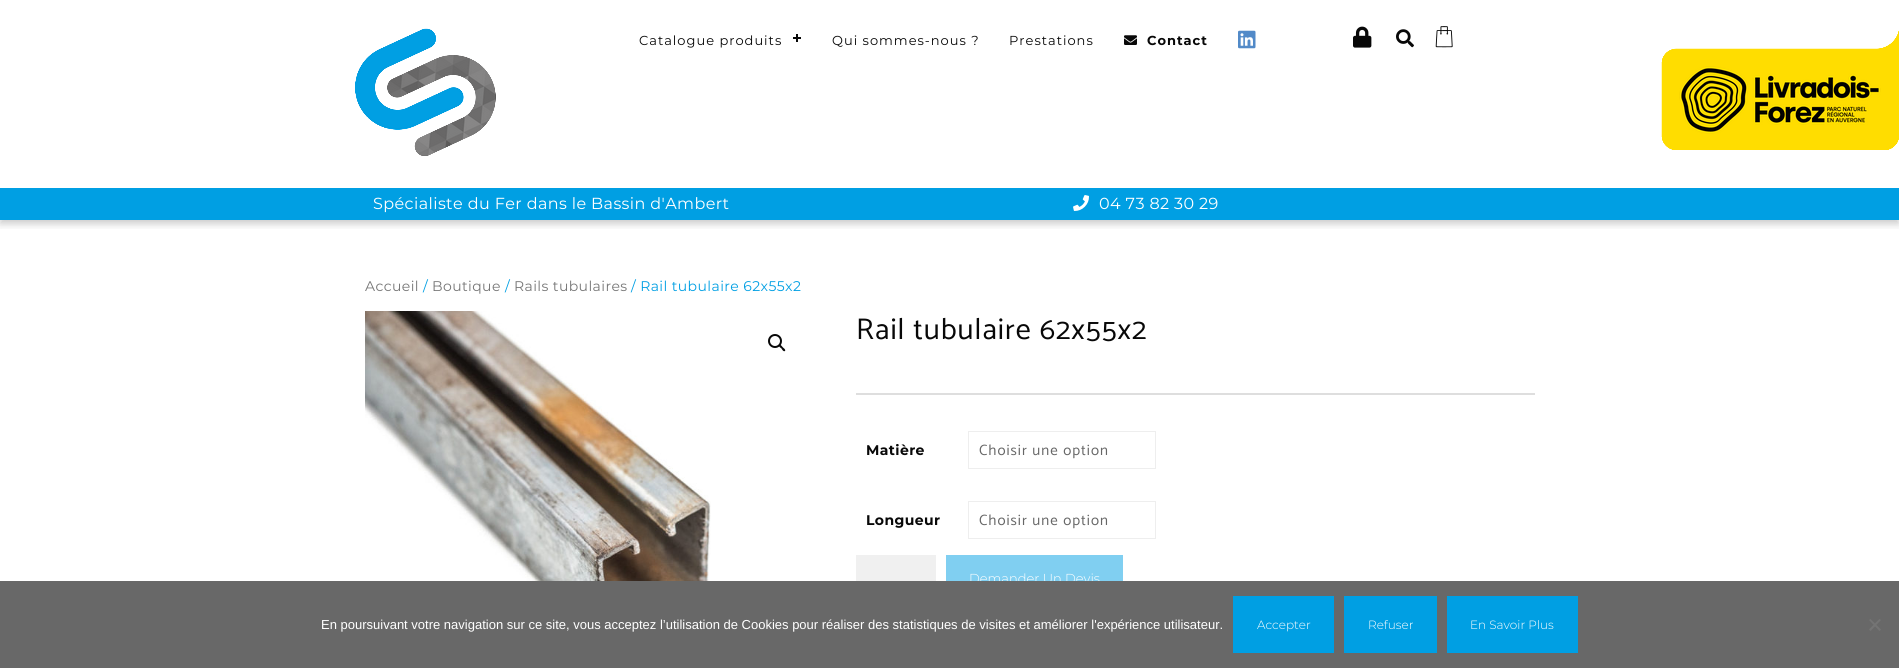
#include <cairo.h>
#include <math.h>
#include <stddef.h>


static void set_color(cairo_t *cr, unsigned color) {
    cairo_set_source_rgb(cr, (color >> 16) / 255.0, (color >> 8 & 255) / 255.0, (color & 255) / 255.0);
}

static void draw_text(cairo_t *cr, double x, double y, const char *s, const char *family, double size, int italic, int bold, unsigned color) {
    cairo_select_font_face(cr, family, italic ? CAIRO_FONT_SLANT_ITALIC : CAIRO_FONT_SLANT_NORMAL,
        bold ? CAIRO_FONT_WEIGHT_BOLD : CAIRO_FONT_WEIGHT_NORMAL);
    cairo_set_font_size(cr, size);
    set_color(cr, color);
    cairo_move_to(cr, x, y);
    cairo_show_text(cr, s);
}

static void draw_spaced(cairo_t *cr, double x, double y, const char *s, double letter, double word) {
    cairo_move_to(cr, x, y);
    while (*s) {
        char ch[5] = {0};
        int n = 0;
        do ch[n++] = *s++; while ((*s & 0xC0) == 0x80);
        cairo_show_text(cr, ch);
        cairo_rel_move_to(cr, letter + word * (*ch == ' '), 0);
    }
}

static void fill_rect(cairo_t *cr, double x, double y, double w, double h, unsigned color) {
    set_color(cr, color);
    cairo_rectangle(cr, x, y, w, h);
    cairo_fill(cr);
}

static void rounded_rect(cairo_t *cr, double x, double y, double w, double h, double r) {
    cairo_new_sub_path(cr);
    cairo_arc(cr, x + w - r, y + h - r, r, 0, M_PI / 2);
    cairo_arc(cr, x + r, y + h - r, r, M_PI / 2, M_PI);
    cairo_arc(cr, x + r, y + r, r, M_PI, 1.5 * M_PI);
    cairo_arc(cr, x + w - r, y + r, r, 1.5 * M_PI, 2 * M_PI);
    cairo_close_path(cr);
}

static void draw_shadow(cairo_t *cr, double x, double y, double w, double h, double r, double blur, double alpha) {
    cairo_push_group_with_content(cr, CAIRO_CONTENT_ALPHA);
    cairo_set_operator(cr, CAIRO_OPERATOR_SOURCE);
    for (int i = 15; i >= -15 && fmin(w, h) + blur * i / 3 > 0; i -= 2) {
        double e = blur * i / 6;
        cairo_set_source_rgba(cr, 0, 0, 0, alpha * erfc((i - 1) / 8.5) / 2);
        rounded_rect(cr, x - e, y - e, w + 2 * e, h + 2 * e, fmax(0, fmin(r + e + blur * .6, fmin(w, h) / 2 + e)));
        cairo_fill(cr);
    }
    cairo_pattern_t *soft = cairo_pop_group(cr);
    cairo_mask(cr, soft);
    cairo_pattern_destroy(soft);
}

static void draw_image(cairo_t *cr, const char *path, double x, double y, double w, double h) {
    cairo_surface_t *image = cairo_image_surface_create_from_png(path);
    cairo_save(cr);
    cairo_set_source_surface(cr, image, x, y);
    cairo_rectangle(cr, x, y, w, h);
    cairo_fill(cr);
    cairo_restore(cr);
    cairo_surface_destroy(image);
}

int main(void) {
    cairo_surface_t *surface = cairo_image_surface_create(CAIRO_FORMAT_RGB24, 1899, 668);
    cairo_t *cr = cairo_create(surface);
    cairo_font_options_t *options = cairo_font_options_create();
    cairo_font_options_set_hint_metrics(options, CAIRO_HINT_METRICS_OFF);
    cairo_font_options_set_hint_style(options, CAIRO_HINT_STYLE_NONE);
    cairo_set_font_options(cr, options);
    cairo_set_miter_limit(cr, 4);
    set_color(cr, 0xFFFFFF);
    cairo_paint(cr);
    cairo_save(cr);
    cairo_rectangle(cr, 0, 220, 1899, 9);
    cairo_clip(cr);
    set_color(cr, 0x000000);
    draw_shadow(cr, 0, 4, 1899, 220, 0, 4, 0.2);
    cairo_restore(cr);
    draw_image(cr, "assets/img1.png", 355, 28, 141, 128);
    cairo_select_font_face(cr, "Montserrat", CAIRO_FONT_SLANT_NORMAL, CAIRO_FONT_WEIGHT_NORMAL);
    cairo_set_font_size(cr, 13);
    set_color(cr, 0x080808);
    draw_spaced(cr, 639, 45, "Catalogue produits", 1, 0);
    fill_rect(cr, 796, 34, 2, 8, 0x080808);
    fill_rect(cr, 793, 37, 8, 2, 0x080808);
    draw_spaced(cr, 832, 45, "Qui sommes-nous ?", 1, 0);
    draw_spaced(cr, 1009, 45, "Prestations", 1, 0);
    draw_image(cr, "assets/img2.png", 1124, 35, 13, 10);
    cairo_select_font_face(cr, "Montserrat", CAIRO_FONT_SLANT_NORMAL, CAIRO_FONT_WEIGHT_BOLD);
    draw_spaced(cr, 1147, 45, "Contact", 1, 0);
    draw_image(cr, "assets/img3.png", 1238, 30, 18, 19);
    draw_image(cr, "assets/img4.png", 1353, 26, 19, 22);
    draw_image(cr, "assets/img5.png", 1396, 29, 18, 19);
    draw_image(cr, "assets/img6.png", 1435, 26, 18, 22);
    draw_image(cr, "assets/img7.png", 1661, 30, 238, 120);
    fill_rect(cr, 0, 188, 1899, 32, 0x009FE3);
    cairo_select_font_face(cr, "Montserrat", CAIRO_FONT_SLANT_NORMAL, CAIRO_FONT_WEIGHT_NORMAL);
    cairo_set_font_size(cr, 16);
    set_color(cr, 0xFFFFFF);
    draw_spaced(cr, 373, 209, "Spécialiste du Fer dans le Bassin d'Ambert", 0.4, 0);
    draw_image(cr, "assets/img8.png", 1073, 195, 16, 16);
    draw_spaced(cr, 1099, 209, "04 73 82 30 29", 0.4, 0);
    cairo_set_font_size(cr, 14);
    set_color(cr, 0x767676);
    draw_spaced(cr, 365, 291, "Accueil", 0.4, 0);
    set_color(cr, 0x009FE3);
    draw_spaced(cr, 423, 291, "/", 0.4, 0);
    set_color(cr, 0x767676);
    draw_spaced(cr, 432, 291, "Boutique", 0.4, 0);
    set_color(cr, 0x009FE3);
    draw_spaced(cr, 505, 291, "/", 0.4, 0);
    set_color(cr, 0x767676);
    draw_spaced(cr, 514, 291, "Rails tubulaires", 0.4, 0);
    set_color(cr, 0x009FE3);
    draw_spaced(cr, 631, 291, "/ Rail tubulaire 62x55x2", 0.4, 0);
    draw_image(cr, "assets/img9.png", 365, 311, 346, 270);
    cairo_arc(cr, 775, 341, 6, 0, 2 * M_PI);
    set_color(cr, 0x080808);
    cairo_stroke(cr);
    cairo_new_path(cr);
    cairo_move_to(cr, 779.5, 345);
    cairo_curve_to(cr, 780.5, 344, 782, 346.5, 783, 347.5);
    cairo_curve_to(cr, 783.5, 348, 786, 349.5, 785, 351);
    cairo_curve_to(cr, 783.5, 352, 782, 349.5, 781.5, 348.5);
    cairo_curve_to(cr, 781, 348, 778, 346.5, 779.5, 345);
    cairo_close_path(cr);
    cairo_fill(cr);
    cairo_select_font_face(cr, "Catamaran", CAIRO_FONT_SLANT_NORMAL, CAIRO_FONT_WEIGHT_NORMAL);
    cairo_set_font_size(cr, 30);
    draw_spaced(cr, 856, 339, "Rail tubulaire 62x55x2", 1, 0);
    fill_rect(cr, 856, 393, 679, 2, 0xDEDEDE);
    cairo_select_font_face(cr, "Montserrat", CAIRO_FONT_SLANT_NORMAL, CAIRO_FONT_WEIGHT_BOLD);
    cairo_set_font_size(cr, 14);
    set_color(cr, 0x080808);
    draw_spaced(cr, 866, 455, "Matière", 0.4, 0);
    cairo_rectangle(cr, 968.5, 431.5, 187, 37);
    set_color(cr, 0xEEEEEE);
    cairo_set_line_width(cr, 1);
    cairo_stroke(cr);
    cairo_select_font_face(cr, "Catamaran", CAIRO_FONT_SLANT_NORMAL, CAIRO_FONT_WEIGHT_NORMAL);
    cairo_set_font_size(cr, 15);
    set_color(cr, 0x666666);
    draw_spaced(cr, 979, 455, "Choisir une option", 1, 0);
    cairo_select_font_face(cr, "Montserrat", CAIRO_FONT_SLANT_NORMAL, CAIRO_FONT_WEIGHT_BOLD);
    cairo_set_font_size(cr, 14);
    set_color(cr, 0x080808);
    draw_spaced(cr, 866, 525, "Longueur", 0.4, 0);
    cairo_rectangle(cr, 968.5, 501.5, 187, 37);
    set_color(cr, 0xEEEEEE);
    cairo_stroke(cr);
    cairo_select_font_face(cr, "Catamaran", CAIRO_FONT_SLANT_NORMAL, CAIRO_FONT_WEIGHT_NORMAL);
    cairo_set_font_size(cr, 15);
    set_color(cr, 0x666666);
    draw_spaced(cr, 979, 525, "Choisir une option", 1, 0);
    fill_rect(cr, 856, 555, 80, 26, 0xF0F0F0);
    fill_rect(cr, 946, 555, 177, 26, 0x80CFF1);
    draw_text(cr, 969, 583, "Demander Un Devis", "Montserrat Light", 13, 0, 0, 0xFFFFFF);
    fill_rect(cr, 0, 581, 1899, 87, 0x686868);
    draw_text(cr, 321, 629, "En poursuivant votre navigation sur ce site, vous acceptez l’utilisation de Cookies pour réaliser des statistiques de visites et améliorer l'expérience utilisateur.", "Liberation Sans", 13, 0, 0, 0xFFFFFF);
    fill_rect(cr, 1233, 596, 101, 57, 0x009FE3);
    draw_text(cr, 1257, 629, "Accepter", "Montserrat Light", 12, 0, 0, 0xFFFFFF);
    fill_rect(cr, 1344, 596, 93, 57, 0x009FE3);
    draw_text(cr, 1368, 629, "Refuser", "Montserrat Light", 12, 0, 0, 0xFFFFFF);
    fill_rect(cr, 1447, 596, 131, 57, 0x009FE3);
    draw_text(cr, 1470, 629, "En Savoir Plus", "Montserrat Light", 12, 0, 0, 0xFFFFFF);
    set_color(cr, 0x747474);
    cairo_new_path(cr);
    cairo_move_to(cr, 1879.5, 619);
    cairo_line_to(cr, 1881, 620);
    cairo_line_to(cr, 1870.5, 631);
    cairo_line_to(cr, 1869, 629.5);
    cairo_close_path(cr);
    cairo_fill(cr);
    cairo_new_path(cr);
    cairo_move_to(cr, 1869, 620);
    cairo_line_to(cr, 1870.5, 619);
    cairo_line_to(cr, 1881, 629.5);
    cairo_line_to(cr, 1879.5, 631);
    cairo_close_path(cr);
    cairo_fill(cr);
    cairo_surface_write_to_png(surface, "output.png");
    cairo_font_options_destroy(options);
    cairo_destroy(cr);
    cairo_surface_destroy(surface);
    return 0;
}
